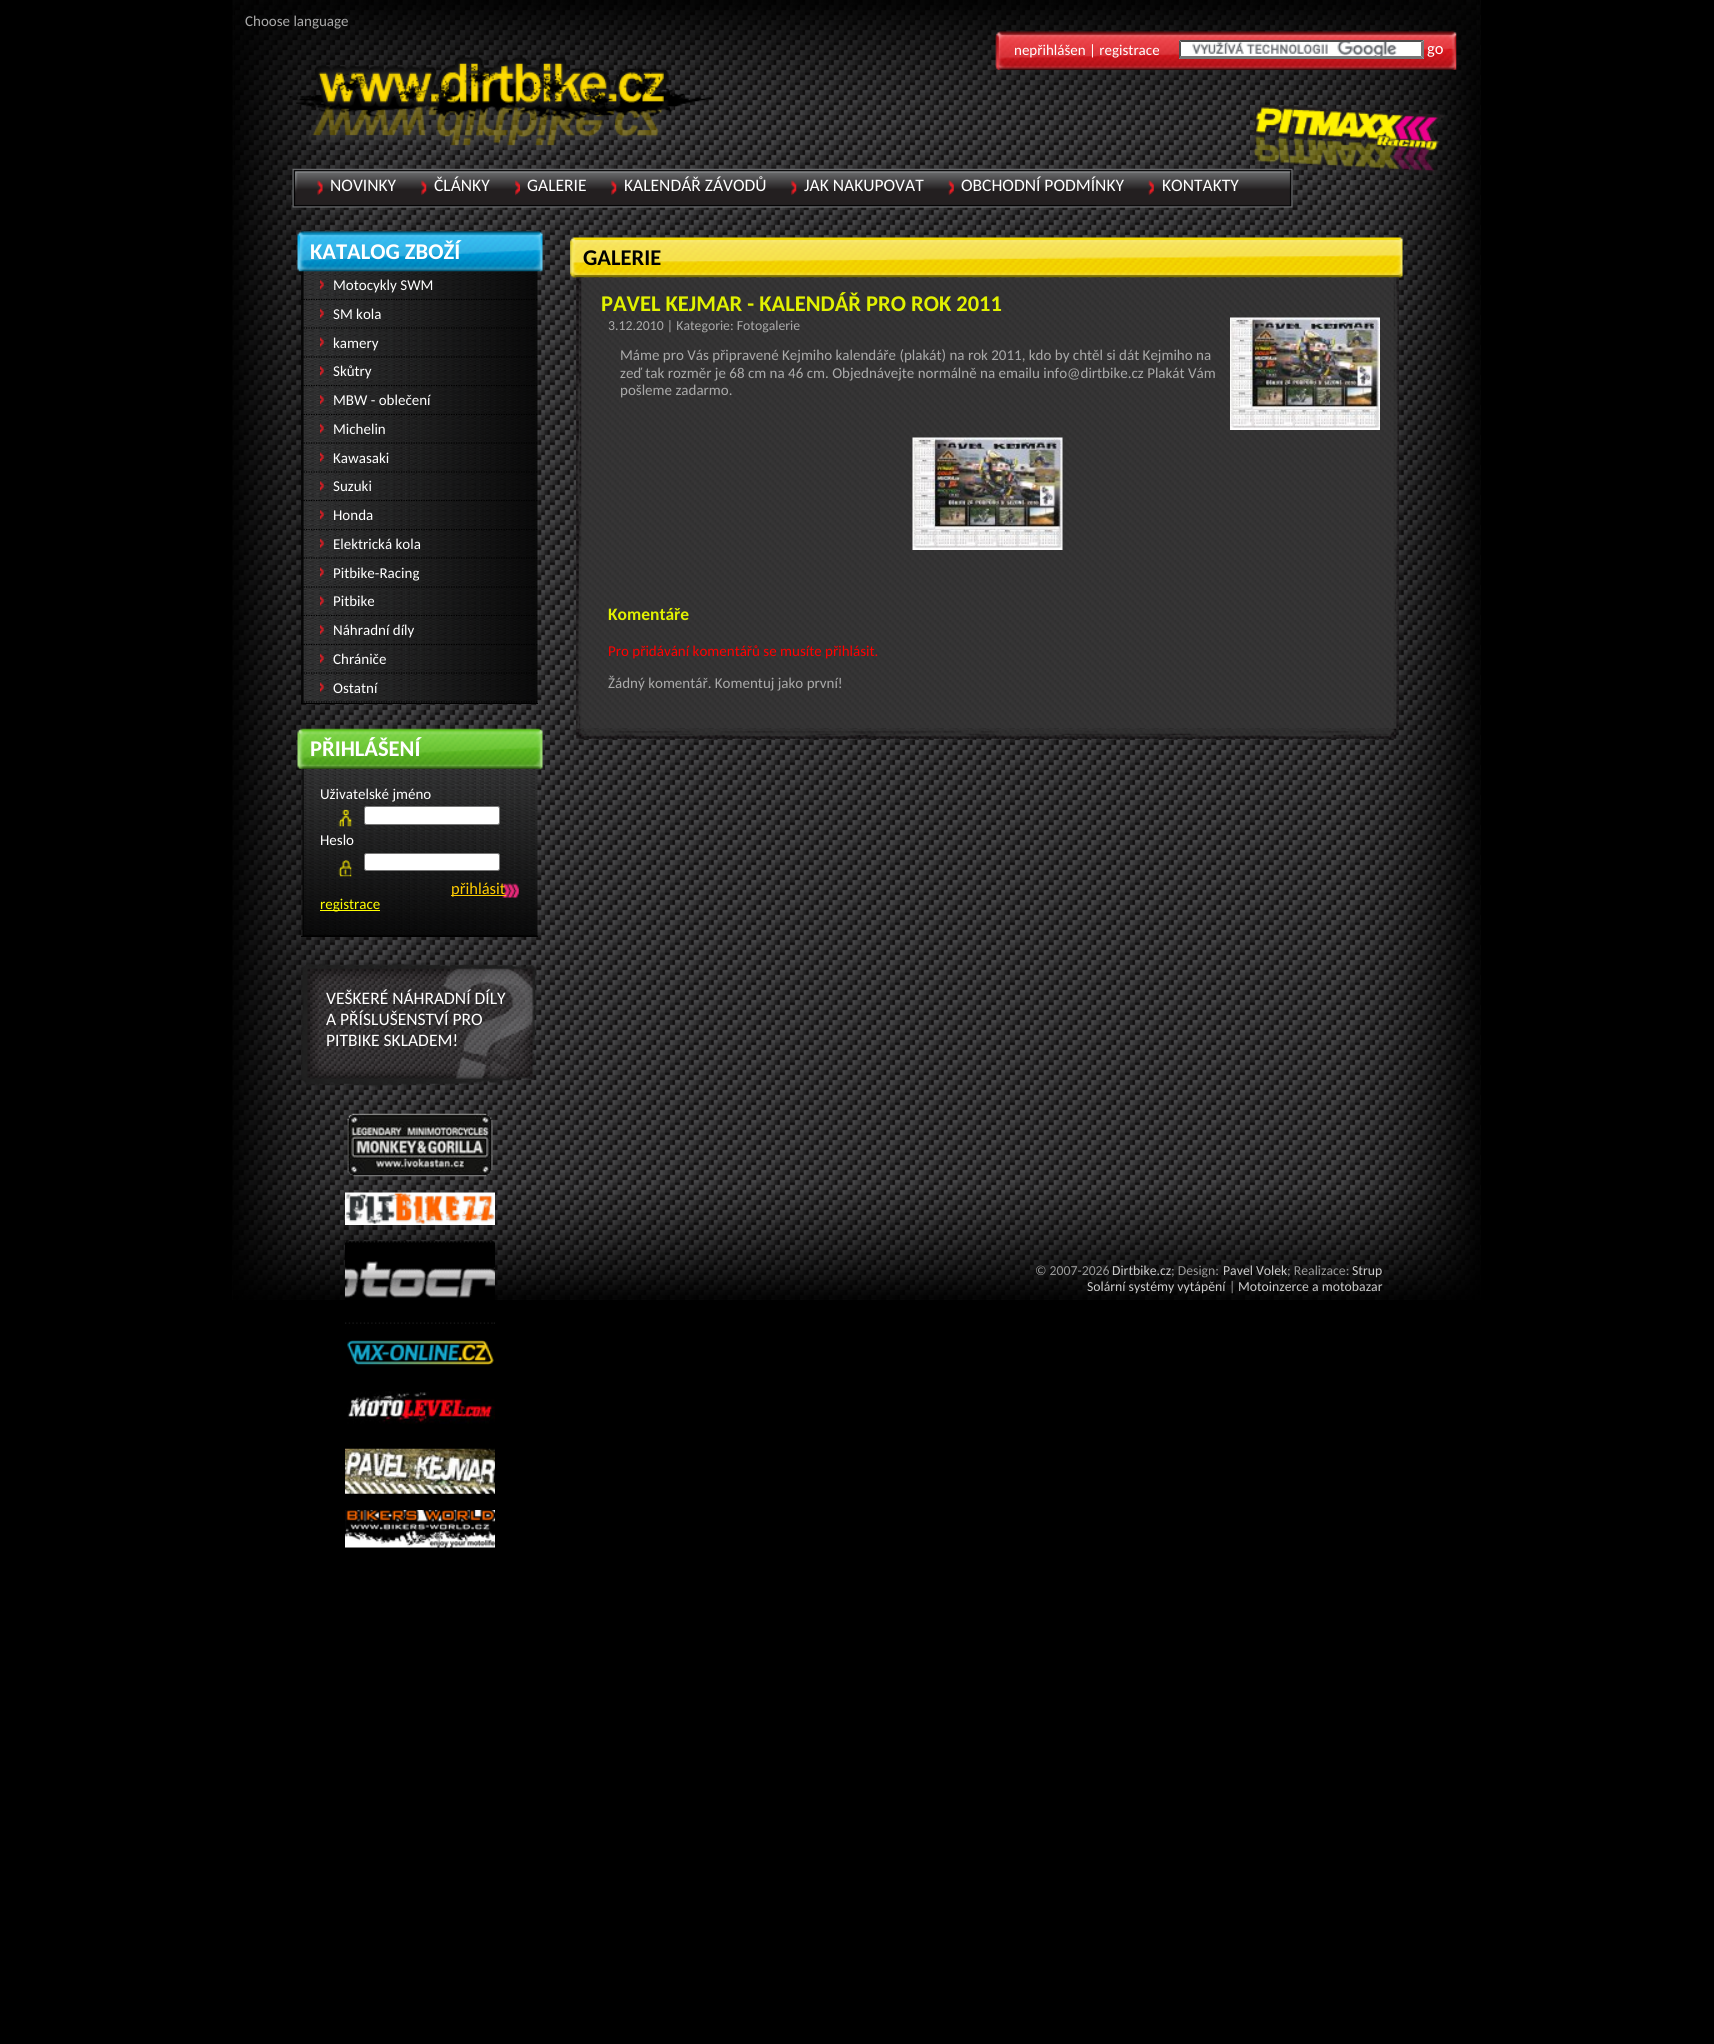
#include <cairo.h>
#include <math.h>
#include <stddef.h>


static void set_color(cairo_t *cr, unsigned color) {
    cairo_set_source_rgb(cr, (color >> 16) / 255.0, (color >> 8 & 255) / 255.0, (color & 255) / 255.0);
}

static void draw_text(cairo_t *cr, double x, double y, const char *s, const char *family, double size, int italic, int bold, unsigned color) {
    cairo_select_font_face(cr, family, italic ? CAIRO_FONT_SLANT_ITALIC : CAIRO_FONT_SLANT_NORMAL,
        bold ? CAIRO_FONT_WEIGHT_BOLD : CAIRO_FONT_WEIGHT_NORMAL);
    cairo_set_font_size(cr, size);
    set_color(cr, color);
    cairo_move_to(cr, x, y);
    cairo_show_text(cr, s);
}

static void fill_rect(cairo_t *cr, double x, double y, double w, double h, unsigned color) {
    set_color(cr, color);
    cairo_rectangle(cr, x, y, w, h);
    cairo_fill(cr);
}

static void rounded_rect(cairo_t *cr, double x, double y, double w, double h, double r) {
    cairo_new_sub_path(cr);
    cairo_arc(cr, x + w - r, y + h - r, r, 0, M_PI / 2);
    cairo_arc(cr, x + r, y + h - r, r, M_PI / 2, M_PI);
    cairo_arc(cr, x + r, y + r, r, M_PI, 1.5 * M_PI);
    cairo_arc(cr, x + w - r, y + r, r, 1.5 * M_PI, 2 * M_PI);
    cairo_close_path(cr);
}

static void draw_image(cairo_t *cr, const char *path, double x, double y, double w, double h) {
    cairo_surface_t *image = cairo_image_surface_create_from_png(path);
    cairo_save(cr);
    cairo_set_source_surface(cr, image, x, y);
    cairo_rectangle(cr, x, y, w, h);
    cairo_fill(cr);
    cairo_restore(cr);
    cairo_surface_destroy(image);
}

int main(void) {
    cairo_surface_t *surface = cairo_image_surface_create(CAIRO_FORMAT_RGB24, 1714, 2044);
    cairo_t *cr = cairo_create(surface);
    cairo_font_options_t *options = cairo_font_options_create();
    cairo_font_options_set_hint_metrics(options, CAIRO_HINT_METRICS_OFF);
    cairo_font_options_set_hint_style(options, CAIRO_HINT_STYLE_NONE);
    cairo_set_font_options(cr, options);
    cairo_set_miter_limit(cr, 4);
    set_color(cr, 0x000000);
    cairo_paint(cr);
    draw_image(cr, "assets/img1.png", 232, 0, 1249, 1300);
    draw_image(cr, "assets/img2.png", 234, 0, 1243, 180);
    draw_text(cr, 245, 26, "Choose language", "Carlito", 15, 0, 0, 0xAAAAAA);
    draw_image(cr, "assets/img3.png", 995, 31, 462, 39);
    draw_text(cr, 1014, 55, "nepřihlášen | registrace", "Carlito", 15, 0, 0, 0xFFFFFF);
    fill_rect(cr, 1179, 40, 245, 19, 0xFFFFFF);
    draw_image(cr, "assets/img4.png", 1192, 42, 205, 14);
    set_color(cr, 0x4F4F4F);
    cairo_new_path(cr);
    cairo_move_to(cr, 1179, 40);
    cairo_line_to(cr, 1424, 40);
    cairo_line_to(cr, 1421, 42);
    cairo_line_to(cr, 1181, 42);
    cairo_close_path(cr);
    cairo_fill(cr);
    set_color(cr, 0x767676);
    cairo_new_path(cr);
    cairo_move_to(cr, 1424, 40);
    cairo_line_to(cr, 1424, 59);
    cairo_line_to(cr, 1421, 56);
    cairo_line_to(cr, 1421, 42.5);
    cairo_close_path(cr);
    cairo_fill(cr);
    cairo_new_path(cr);
    cairo_move_to(cr, 1424, 59);
    cairo_line_to(cr, 1179, 59);
    cairo_line_to(cr, 1181, 56);
    cairo_line_to(cr, 1421, 56);
    cairo_close_path(cr);
    cairo_fill(cr);
    set_color(cr, 0x4F4F4F);
    cairo_new_path(cr);
    cairo_move_to(cr, 1179, 59);
    cairo_line_to(cr, 1179, 40);
    cairo_line_to(cr, 1181, 42.5);
    cairo_line_to(cr, 1181, 56);
    cairo_close_path(cr);
    cairo_fill(cr);
    draw_text(cr, 1427, 54, "go", "Carlito", 16.5, 0, 0, 0xFFFFFF);
    draw_image(cr, "assets/img5.png", 289, 56, 424, 94);
    draw_image(cr, "assets/img6.png", 1250, 105, 195, 69);
    draw_image(cr, "assets/img7.png", 292, 168, 1001, 40);
    draw_image(cr, "assets/img8.png", 317, 180, 6, 16);
    draw_text(cr, 330, 191, "NOVINKY", "Carlito", 17.5, 0, 0, 0xFFFFFF);
    draw_image(cr, "assets/img9.png", 421, 180, 6, 16);
    draw_text(cr, 434, 191, "ČLÁNKY", "Carlito", 17.5, 0, 0, 0xFFFFFF);
    draw_image(cr, "assets/img10.png", 515, 180, 5, 16);
    draw_text(cr, 527, 191, "GALERIE", "Carlito", 17.5, 0, 0, 0xFFFFFF);
    draw_image(cr, "assets/img9.png", 611, 180, 6, 16);
    draw_text(cr, 624, 191, "KALENDÁŘ ZÁVODŮ", "Carlito", 17.5, 0, 0, 0xFFFFFF);
    draw_image(cr, "assets/img9.png", 791, 180, 6, 16);
    draw_text(cr, 804, 191, "JAK NAKUPOVAT", "Carlito", 17.5, 0, 0, 0xFFFFFF);
    draw_image(cr, "assets/img11.png", 948, 180, 6, 16);
    draw_text(cr, 961, 191, "OBCHODNÍ PODMÍNKY", "Carlito", 17.5, 0, 0, 0xFFFFFF);
    draw_image(cr, "assets/img11.png", 1148, 180, 6, 16);
    draw_text(cr, 1162, 191, "KONTAKTY", "Carlito", 17.5, 0, 0, 0xFFFFFF);
    draw_image(cr, "assets/img12.png", 301, 231, 237, 472);
    fill_rect(cr, 301, 703, 237, 1, 0x000000);
    draw_image(cr, "assets/img13.png", 297, 231, 246, 41);
    draw_text(cr, 310, 259, "KATALOG ZBOŽÍ", "Carlito", 22.5, 0, 1, 0xFFFFFF);
    draw_image(cr, "assets/img14.png", 320, 279, 4, 11);
    cairo_new_path(cr);
    cairo_move_to(cr, 301, 299.5);
    cairo_line_to(cr, 537.5, 299.5);
    set_color(cr, 0x000000);
    cairo_set_line_width(cr, 1.2);
    cairo_set_dash(cr, (double[]){1.25, 1.25}, 2, 0);
    cairo_stroke(cr);
    draw_text(cr, 333, 290, "Motocykly SWM", "Carlito", 15, 0, 0, 0xFFFFFF);
    draw_image(cr, "assets/img15.png", 320, 308, 4, 11);
    cairo_new_path(cr);
    cairo_move_to(cr, 301, 328);
    cairo_line_to(cr, 537.5, 328);
    set_color(cr, 0x000000);
    cairo_stroke(cr);
    draw_text(cr, 333, 319, "SM kola", "Carlito", 15, 0, 0, 0xFFFFFF);
    draw_image(cr, "assets/img16.png", 320, 337, 4, 11);
    cairo_new_path(cr);
    cairo_move_to(cr, 301, 357);
    cairo_line_to(cr, 537.5, 357);
    set_color(cr, 0x000000);
    cairo_stroke(cr);
    draw_text(cr, 333, 348, "kamery", "Carlito", 15, 0, 0, 0xFFFFFF);
    draw_image(cr, "assets/img17.png", 320, 366, 4, 11);
    cairo_new_path(cr);
    cairo_move_to(cr, 301, 385.5);
    cairo_line_to(cr, 537.5, 385.5);
    set_color(cr, 0x000000);
    cairo_stroke(cr);
    draw_text(cr, 333, 376, "Skůtry", "Carlito", 15, 0, 0, 0xFFFFFF);
    draw_image(cr, "assets/img18.png", 320, 394, 4, 11);
    cairo_new_path(cr);
    cairo_move_to(cr, 301, 414.5);
    cairo_line_to(cr, 537.5, 414.5);
    set_color(cr, 0x000000);
    cairo_stroke(cr);
    draw_text(cr, 333, 405, "MBW - oblečení", "Carlito", 15, 0, 0, 0xFFFFFF);
    draw_image(cr, "assets/img19.png", 320, 423, 4, 11);
    cairo_new_path(cr);
    cairo_move_to(cr, 301, 443);
    cairo_line_to(cr, 537.5, 443);
    set_color(cr, 0x000000);
    cairo_stroke(cr);
    draw_text(cr, 333, 434, "Michelin", "Carlito", 15, 0, 0, 0xFFFFFF);
    draw_image(cr, "assets/img20.png", 320, 452, 4, 11);
    cairo_new_path(cr);
    cairo_move_to(cr, 301, 472);
    cairo_line_to(cr, 537.5, 472);
    set_color(cr, 0x000000);
    cairo_stroke(cr);
    draw_text(cr, 333, 463, "Kawasaki", "Carlito", 15, 0, 0, 0xFFFFFF);
    draw_image(cr, "assets/img21.png", 320, 481, 4, 11);
    cairo_new_path(cr);
    cairo_move_to(cr, 301, 500.5);
    cairo_line_to(cr, 537.5, 500.5);
    set_color(cr, 0x000000);
    cairo_stroke(cr);
    draw_text(cr, 333, 491, "Suzuki", "Carlito", 15, 0, 0, 0xFFFFFF);
    draw_image(cr, "assets/img22.png", 320, 509, 4, 11);
    cairo_new_path(cr);
    cairo_move_to(cr, 301, 529.5);
    cairo_line_to(cr, 537.5, 529.5);
    set_color(cr, 0x000000);
    cairo_stroke(cr);
    draw_text(cr, 333, 520, "Honda", "Carlito", 15, 0, 0, 0xFFFFFF);
    draw_image(cr, "assets/img23.png", 320, 538, 4, 11);
    cairo_new_path(cr);
    cairo_move_to(cr, 301, 558);
    cairo_line_to(cr, 537.5, 558);
    set_color(cr, 0x000000);
    cairo_stroke(cr);
    draw_text(cr, 333, 549, "Elektrická kola", "Carlito", 15, 0, 0, 0xFFFFFF);
    draw_image(cr, "assets/img24.png", 320, 567, 4, 11);
    cairo_new_path(cr);
    cairo_move_to(cr, 301, 587);
    cairo_line_to(cr, 537.5, 587);
    set_color(cr, 0x000000);
    cairo_stroke(cr);
    draw_text(cr, 333, 578, "Pitbike-Racing", "Carlito", 15, 0, 0, 0xFFFFFF);
    draw_image(cr, "assets/img25.png", 320, 596, 4, 11);
    cairo_new_path(cr);
    cairo_move_to(cr, 301, 615.5);
    cairo_line_to(cr, 537.5, 615.5);
    set_color(cr, 0x000000);
    cairo_stroke(cr);
    draw_text(cr, 333, 606, "Pitbike", "Carlito", 15, 0, 0, 0xFFFFFF);
    draw_image(cr, "assets/img26.png", 320, 624, 4, 11);
    cairo_new_path(cr);
    cairo_move_to(cr, 301, 644.5);
    cairo_line_to(cr, 537.5, 644.5);
    set_color(cr, 0x000000);
    cairo_stroke(cr);
    draw_text(cr, 333, 635, "Náhradní díly", "Carlito", 15, 0, 0, 0xFFFFFF);
    draw_image(cr, "assets/img27.png", 320, 653, 4, 11);
    cairo_new_path(cr);
    cairo_move_to(cr, 301, 673);
    cairo_line_to(cr, 537.5, 673);
    set_color(cr, 0x000000);
    cairo_stroke(cr);
    draw_text(cr, 333, 664, "Chrániče", "Carlito", 15, 0, 0, 0xFFFFFF);
    draw_image(cr, "assets/img28.png", 320, 682, 4, 11);
    cairo_new_path(cr);
    cairo_move_to(cr, 301, 702);
    cairo_line_to(cr, 537.5, 702);
    set_color(cr, 0x000000);
    cairo_stroke(cr);
    draw_text(cr, 333, 693, "Ostatní", "Carlito", 15, 0, 0, 0xFFFFFF);
    draw_image(cr, "assets/img29.png", 301, 768, 237, 168);
    fill_rect(cr, 301, 936, 237, 1, 0x000000);
    draw_image(cr, "assets/img30.png", 297, 728, 246, 41);
    draw_text(cr, 310, 756, "PŘIHLÁŠENÍ", "Carlito", 22.5, 0, 1, 0xFFFFFF);
    draw_text(cr, 320, 799, "Uživatelské jméno", "Carlito", 15, 0, 0, 0xFFFFFF);
    draw_image(cr, "assets/img31.png", 338, 809, 14, 18);
    rounded_rect(cr, 364.5, 806.5, 135, 18, 2);
    cairo_fill_preserve(cr);
    set_color(cr, 0x767676);
    cairo_set_line_width(cr, 1);
    cairo_set_dash(cr, NULL, 0, 0);
    cairo_stroke(cr);
    draw_text(cr, 320, 845, "Heslo", "Carlito", 15, 0, 0, 0xFFFFFF);
    draw_image(cr, "assets/img32.png", 338, 860, 14, 17);
    rounded_rect(cr, 364.5, 853.5, 135, 17, 2);
    cairo_fill_preserve(cr);
    set_color(cr, 0x767676);
    cairo_stroke(cr);
    draw_image(cr, "assets/img33.png", 502, 883, 17, 15);
    fill_rect(cr, 451, 895, 55, 1, 0xFFCC00);
    draw_text(cr, 451, 894, "přihlásit", "Carlito", 16.5, 0, 0, 0xFFCC00);
    fill_rect(cr, 320, 910, 60, 1, 0xFFFF00);
    draw_text(cr, 320, 909, "registrace", "Carlito", 15, 0, 0, 0xFFFF00);
    draw_image(cr, "assets/img34.png", 301, 963, 236, 124);
    draw_text(cr, 326, 1004, "VEŠKERÉ NÁHRADNÍ DÍLY", "Carlito", 17.5, 0, 0, 0xFFFFFF);
    draw_text(cr, 326, 1025, "A PŘÍSLUŠENSTVÍ PRO", "Carlito", 17.5, 0, 0, 0xFFFFFF);
    draw_text(cr, 326, 1046, "PITBIKE SKLADEM!", "Carlito", 17.5, 0, 0, 0xFFFFFF);
    draw_image(cr, "assets/img35.png", 347, 1113, 146, 64);
    draw_image(cr, "assets/img49.png", 233, 1194, 1248, 106);
    draw_image(cr, "assets/img36.png", 345, 1192, 150, 33);
    draw_image(cr, "assets/img37.png", 345, 1241, 150, 83);
    draw_image(cr, "assets/img38.png", 347, 1340, 147, 26);
    draw_image(cr, "assets/img39.png", 347, 1391, 148, 33);
    draw_image(cr, "assets/img40.png", 345, 1448, 150, 46);
    draw_image(cr, "assets/img41.png", 345, 1510, 150, 38);
    draw_image(cr, "assets/img42.png", 570, 237, 833, 41);
    draw_text(cr, 583, 265, "GALERIE", "Carlito", 22.5, 0, 1, 0x000000);
    draw_image(cr, "assets/img43.png", 576, 277, 823, 452);
    draw_image(cr, "assets/img44.png", 576, 277, 6, 452);
    draw_text(cr, 601, 311, "PAVEL KEJMAR - KALENDÁŘ PRO ROK 2011", "Carlito", 22.5, 0, 1, 0xE1F100);
    draw_text(cr, 608, 330, "3.12.2010 | Kategorie: Fotogalerie", "Carlito", 13.75, 0, 0, 0xAAAAAA);
    draw_image(cr, "assets/img45.png", 1230, 317, 150, 113);
    draw_text(cr, 620, 360, "Máme pro Vás připravené Kejmiho kalendáře (plakát) na rok 2011, kdo by chtěl si dát Kejmiho na", "Carlito", 15, 0, 0, 0xAAAAAA);
    draw_text(cr, 620, 378, "zeď tak rozměr je 68 cm na 46 cm. Objednávejte normálně na emailu info@dirtbike.cz Plakát Vám", "Carlito", 15, 0, 0, 0xAAAAAA);
    draw_text(cr, 620, 395, "pošleme zadarmo.", "Carlito", 15, 0, 0, 0xAAAAAA);
    draw_image(cr, "assets/img46.png", 1393, 277, 6, 452);
    draw_image(cr, "assets/img47.png", 912, 437, 151, 113);
    draw_text(cr, 608, 620, "Komentáře", "Carlito", 17.5, 0, 1, 0xE1F100);
    draw_text(cr, 608, 656, "Pro přidávání komentářů se musíte přihlásit.", "Carlito", 15, 0, 0, 0xFF0000);
    draw_text(cr, 608, 688, "Žádný komentář. Komentuj jako první!", "Carlito", 15, 0, 0, 0xAAAAAA);
    draw_image(cr, "assets/img48.png", 576, 728, 821, 11);
    draw_text(cr, 1035, 1275, "© 2007-2026", "Carlito", 13.75, 0, 0, 0x999999);
    draw_text(cr, 1112, 1275, "Dirtbike.cz", "Carlito", 13.75, 0, 0, 0xCCCCCC);
    draw_text(cr, 1171, 1275, "; Design:", "Carlito", 13.75, 0, 0, 0x999999);
    draw_text(cr, 1223, 1275, "Pavel Volek", "Carlito", 13.75, 0, 0, 0xCCCCCC);
    draw_text(cr, 1287, 1275, "; Realizace:", "Carlito", 13.75, 0, 0, 0x999999);
    draw_text(cr, 1352, 1275, "Strup", "Carlito", 13.75, 0, 0, 0xCCCCCC);
    draw_text(cr, 1087, 1291, "Solární systémy vytápění", "Carlito", 13.75, 0, 0, 0xCCCCCC);
    draw_text(cr, 1229, 1291, "|", "Carlito", 13.75, 0, 0, 0x999999);
    draw_text(cr, 1238, 1291, "Motoinzerce a motobazar", "Carlito", 13.75, 0, 0, 0xCCCCCC);
    cairo_surface_write_to_png(surface, "output.png");
    cairo_font_options_destroy(options);
    cairo_destroy(cr);
    cairo_surface_destroy(surface);
    return 0;
}
